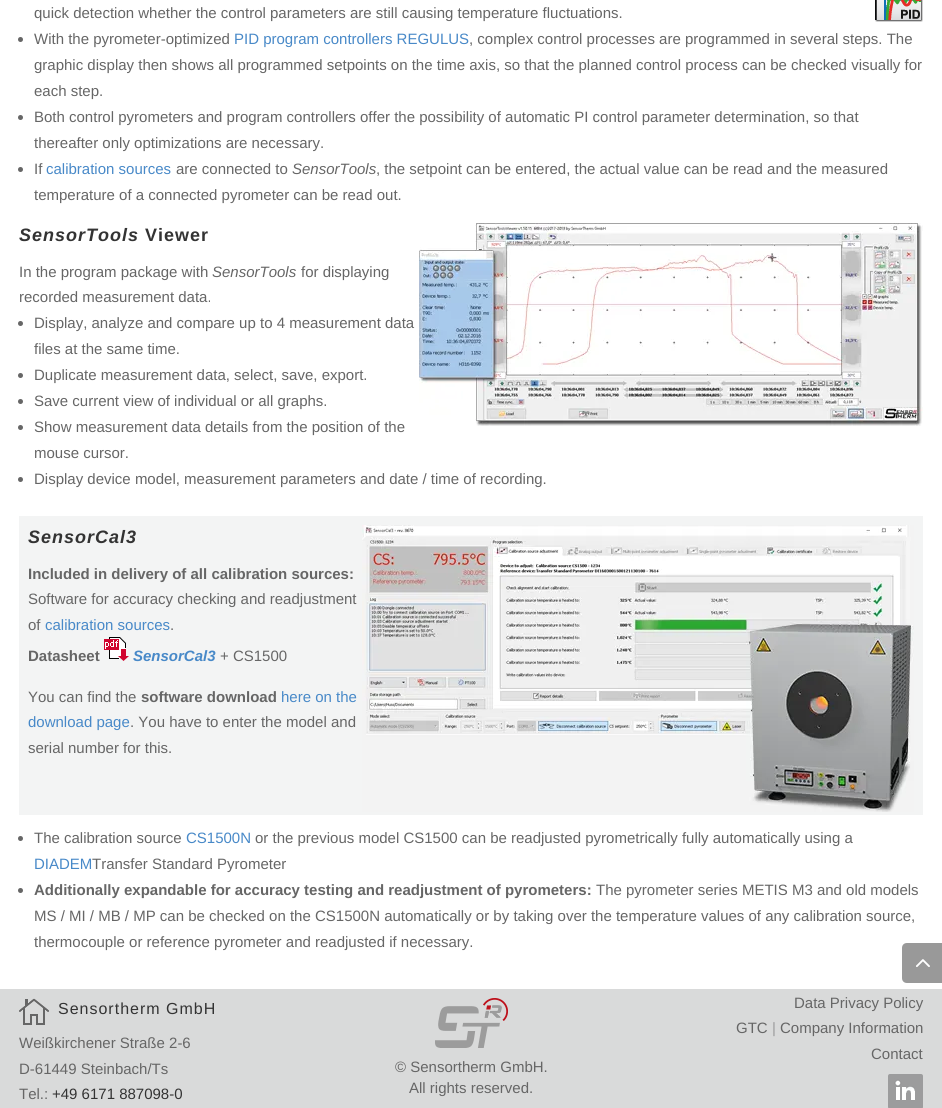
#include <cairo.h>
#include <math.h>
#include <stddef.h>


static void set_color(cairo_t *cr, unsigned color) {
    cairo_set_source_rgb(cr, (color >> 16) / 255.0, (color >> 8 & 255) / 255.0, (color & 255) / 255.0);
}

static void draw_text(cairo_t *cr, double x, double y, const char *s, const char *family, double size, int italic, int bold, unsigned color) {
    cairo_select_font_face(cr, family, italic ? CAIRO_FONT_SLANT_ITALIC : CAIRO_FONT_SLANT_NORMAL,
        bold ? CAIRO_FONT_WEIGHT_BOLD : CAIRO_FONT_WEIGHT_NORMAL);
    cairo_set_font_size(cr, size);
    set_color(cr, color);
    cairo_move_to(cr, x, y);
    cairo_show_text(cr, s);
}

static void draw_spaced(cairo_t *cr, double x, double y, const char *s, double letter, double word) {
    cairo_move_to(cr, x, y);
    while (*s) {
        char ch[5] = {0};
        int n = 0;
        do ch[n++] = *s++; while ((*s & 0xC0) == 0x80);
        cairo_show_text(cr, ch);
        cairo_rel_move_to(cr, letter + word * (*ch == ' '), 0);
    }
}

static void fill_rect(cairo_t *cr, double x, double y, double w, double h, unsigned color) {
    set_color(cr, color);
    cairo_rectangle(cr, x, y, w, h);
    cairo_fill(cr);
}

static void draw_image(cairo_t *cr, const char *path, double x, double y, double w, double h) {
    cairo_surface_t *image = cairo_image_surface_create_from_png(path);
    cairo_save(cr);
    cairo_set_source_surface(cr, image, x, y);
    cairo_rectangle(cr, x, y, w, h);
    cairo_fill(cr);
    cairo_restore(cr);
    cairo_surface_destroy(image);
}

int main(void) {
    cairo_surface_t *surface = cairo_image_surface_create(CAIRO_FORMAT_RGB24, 942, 1108);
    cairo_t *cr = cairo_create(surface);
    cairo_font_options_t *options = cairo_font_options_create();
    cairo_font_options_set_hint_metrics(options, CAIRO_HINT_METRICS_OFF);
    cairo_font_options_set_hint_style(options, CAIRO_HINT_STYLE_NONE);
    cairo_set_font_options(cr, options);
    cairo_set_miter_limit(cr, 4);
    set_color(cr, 0xFFFFFF);
    cairo_paint(cr);
    draw_text(cr, 34, 18, "quick detection whether the control parameters are still causing temperature fluctuations.", "Liberation Sans", 15, 0, 0, 0x666666);
    draw_image(cr, "assets/img1.png", 875, 0, 48, 22);
    cairo_arc(cr, 20.5, 39.5, 2.5, 0, 2 * M_PI);
    cairo_fill(cr);
    draw_text(cr, 34, 44, "With the pyrometer-optimized", "Liberation Sans", 15, 0, 0, 0x666666);
    draw_text(cr, 234, 44, "PID program controllers REGULUS", "Liberation Sans", 15, 0, 0, 0x4889C8);
    draw_text(cr, 469, 44, ", complex control processes are programmed in several steps. The", "Liberation Sans", 15, 0, 0, 0x666666);
    draw_text(cr, 34, 70, "graphic display then shows all programmed setpoints on the time axis, so that the planned control process can be checked visually for", "Liberation Sans", 15, 0, 0, 0x666666);
    draw_text(cr, 34, 96, "each step.", "Liberation Sans", 15, 0, 0, 0x666666);
    cairo_new_path(cr);
    cairo_arc(cr, 20.5, 117.5, 2.5, 0, 2 * M_PI);
    cairo_fill(cr);
    draw_text(cr, 34, 122, "Both control pyrometers and program controllers offer the possibility of automatic PI control parameter determination, so that", "Liberation Sans", 15, 0, 0, 0x666666);
    draw_text(cr, 34, 148, "thereafter only optimizations are necessary.", "Liberation Sans", 15, 0, 0, 0x666666);
    cairo_new_path(cr);
    cairo_arc(cr, 20.5, 169.5, 2.5, 0, 2 * M_PI);
    cairo_fill(cr);
    draw_text(cr, 34, 174, "If", "Liberation Sans", 15, 0, 0, 0x666666);
    draw_text(cr, 46, 174, "calibration sources", "Liberation Sans", 15, 0, 0, 0x4889C8);
    draw_text(cr, 176, 174, "are connected to", "Liberation Sans", 15, 0, 0, 0x666666);
    draw_text(cr, 292, 174, "SensorTools", "Liberation Sans", 15, 1, 0, 0x666666);
    draw_text(cr, 376, 174, ", the setpoint can be entered, the actual value can be read and the measured", "Liberation Sans", 15, 0, 0, 0x666666);
    draw_text(cr, 34, 200, "temperature of a connected pyrometer can be read out.", "Liberation Sans", 15, 0, 0, 0x666666);
    cairo_select_font_face(cr, "Liberation Sans", CAIRO_FONT_SLANT_ITALIC, CAIRO_FONT_WEIGHT_BOLD);
    cairo_set_font_size(cr, 18);
    set_color(cr, 0x333333);
    draw_spaced(cr, 19, 241, "SensorTools", 1, 0);
    cairo_select_font_face(cr, "Liberation Sans", CAIRO_FONT_SLANT_NORMAL, CAIRO_FONT_WEIGHT_BOLD);
    draw_spaced(cr, 145, 241, "Viewer", 1, 0);
    draw_text(cr, 19, 277, "In the program package with", "Liberation Sans", 15, 0, 0, 0x666666);
    draw_text(cr, 212, 277, "SensorTools", "Liberation Sans", 15, 1, 0, 0x666666);
    draw_text(cr, 301, 277, "for displaying", "Liberation Sans", 15, 0, 0, 0x666666);
    draw_text(cr, 19, 302, "recorded measurement data.", "Liberation Sans", 15, 0, 0, 0x666666);
    cairo_new_path(cr);
    cairo_arc(cr, 20.5, 323.5, 2.5, 0, 2 * M_PI);
    cairo_fill(cr);
    draw_text(cr, 34, 328, "Display, analyze and compare up to 4 measurement data", "Liberation Sans", 15, 0, 0, 0x666666);
    draw_text(cr, 34, 354, "files at the same time.", "Liberation Sans", 15, 0, 0, 0x666666);
    cairo_new_path(cr);
    cairo_arc(cr, 20.5, 375.5, 2.5, 0, 2 * M_PI);
    cairo_fill(cr);
    draw_text(cr, 34, 380, "Duplicate measurement data, select, save, export.", "Liberation Sans", 15, 0, 0, 0x666666);
    cairo_new_path(cr);
    cairo_arc(cr, 20.5, 401.5, 2.5, 0, 2 * M_PI);
    cairo_fill(cr);
    draw_text(cr, 34, 406, "Save current view of individual or all graphs.", "Liberation Sans", 15, 0, 0, 0x666666);
    cairo_new_path(cr);
    cairo_arc(cr, 20.5, 427.5, 2.5, 0, 2 * M_PI);
    cairo_fill(cr);
    draw_text(cr, 34, 432, "Show measurement data details from the position of the", "Liberation Sans", 15, 0, 0, 0x666666);
    draw_text(cr, 34, 458, "mouse cursor.", "Liberation Sans", 15, 0, 0, 0x666666);
    cairo_new_path(cr);
    cairo_arc(cr, 20.5, 479.5, 2.5, 0, 2 * M_PI);
    cairo_fill(cr);
    draw_text(cr, 34, 484, "Display device model, measurement parameters and date / time of recording.", "Liberation Sans", 15, 0, 0, 0x666666);
    draw_image(cr, "assets/img2.png", 419, 223, 504, 203);
    fill_rect(cr, 19, 516, 904, 299, 0xF3F4F4);
    cairo_select_font_face(cr, "Liberation Sans", CAIRO_FONT_SLANT_ITALIC, CAIRO_FONT_WEIGHT_BOLD);
    cairo_set_font_size(cr, 18);
    set_color(cr, 0x333333);
    draw_spaced(cr, 28, 543, "SensorCal3", 1, 0);
    draw_text(cr, 28, 579, "Included in delivery of all calibration sources:", "Liberation Sans", 15, 0, 1, 0x666666);
    draw_text(cr, 28, 604, "Software for accuracy checking and readjustment", "Liberation Sans", 15, 0, 0, 0x666666);
    draw_text(cr, 28, 630, "of", "Liberation Sans", 15, 0, 0, 0x666666);
    draw_text(cr, 45, 630, "calibration sources", "Liberation Sans", 15, 0, 0, 0x4889C8);
    draw_text(cr, 170, 630, ".", "Liberation Sans", 15, 0, 0, 0x666666);
    draw_text(cr, 28, 661, "Datasheet", "Liberation Sans", 15, 0, 1, 0x666666);
    draw_image(cr, "assets/img3.png", 104, 637, 25, 24);
    draw_text(cr, 133, 661, "SensorCal3", "Liberation Sans", 15, 1, 1, 0x4889C8);
    draw_text(cr, 220, 661, "+ CS1500", "Liberation Sans", 15, 0, 0, 0x666666);
    draw_text(cr, 28, 702, "You can find the", "Liberation Sans", 15, 0, 0, 0x666666);
    draw_text(cr, 141, 702, "software download", "Liberation Sans", 15, 0, 1, 0x666666);
    draw_text(cr, 281, 702, "here on the", "Liberation Sans", 15, 0, 0, 0x4889C8);
    draw_text(cr, 28, 727, "download page", "Liberation Sans", 15, 0, 0, 0x4889C8);
    draw_text(cr, 130, 727, ". You have to enter the model and", "Liberation Sans", 15, 0, 0, 0x666666);
    draw_text(cr, 28, 753, "serial number for this.", "Liberation Sans", 15, 0, 0, 0x666666);
    draw_image(cr, "assets/img4.png", 362, 525, 552, 287);
    cairo_arc(cr, 20.5, 838.5, 2.5, 0, 2 * M_PI);
    cairo_fill(cr);
    draw_text(cr, 34, 843, "The calibration source", "Liberation Sans", 15, 0, 0, 0x666666);
    draw_text(cr, 186, 843, "CS1500N", "Liberation Sans", 15, 0, 0, 0x4889C8);
    draw_text(cr, 255, 843, "or the previous model CS1500 can be readjusted pyrometrically fully automatically using a", "Liberation Sans", 15, 0, 0, 0x666666);
    draw_text(cr, 34, 869, "DIADEM", "Liberation Sans", 15, 0, 0, 0x4889C8);
    draw_text(cr, 92, 869, "Transfer Standard Pyrometer", "Liberation Sans", 15, 0, 0, 0x666666);
    cairo_new_path(cr);
    cairo_arc(cr, 20.5, 890.5, 2.5, 0, 2 * M_PI);
    cairo_fill(cr);
    draw_text(cr, 34, 895, "Additionally expandable for accuracy testing and readjustment of pyrometers:", "Liberation Sans", 15, 0, 1, 0x666666);
    draw_text(cr, 596, 895, "The pyrometer series METIS M3 and old models", "Liberation Sans", 15, 0, 0, 0x666666);
    draw_text(cr, 34, 921, "MS / MI / MB / MP can be checked on the CS1500N automatically or by taking over the temperature values of any calibration source,", "Liberation Sans", 15, 0, 0, 0x666666);
    draw_text(cr, 34, 947, "thermocouple or reference pyrometer and readjusted if necessary.", "Liberation Sans", 15, 0, 0, 0x666666);
    fill_rect(cr, 0, 989, 942, 119, 0xD9DADA);
    draw_image(cr, "assets/img5.png", 19, 998, 30, 27);
    cairo_set_font_size(cr, 16);
    set_color(cr, 0x333333);
    draw_spaced(cr, 58, 1014, "Sensortherm GmbH", 1, 0);
    draw_text(cr, 19, 1048, "Weißkirchener Straße 2-6", "Liberation Sans", 15, 0, 0, 0x666666);
    draw_text(cr, 19, 1074, "D-61449 Steinbach/Ts", "Liberation Sans", 15, 0, 0, 0x666666);
    draw_text(cr, 19, 1099, "Tel.:", "Liberation Sans", 15, 0, 0, 0x666666);
    draw_text(cr, 52, 1099, "+49 6171 887098-0", "Liberation Sans", 15, 0, 0, 0x333333);
    draw_image(cr, "assets/img6.png", 435, 998, 73, 50);
    draw_text(cr, 395, 1072, "© Sensortherm GmbH.", "Liberation Sans", 15, 0, 0, 0x666666);
    draw_text(cr, 409, 1093, "All rights reserved.", "Liberation Sans", 15, 0, 0, 0x666666);
    draw_text(cr, 794, 1008, "Data Privacy Policy", "Liberation Sans", 15, 0, 0, 0x666666);
    draw_text(cr, 736, 1033, "GTC", "Liberation Sans", 15, 0, 0, 0x666666);
    draw_text(cr, 772, 1033, "|", "Liberation Sans", 15, 0, 0, 0x9C9C9D);
    draw_text(cr, 780, 1033, "Company Information", "Liberation Sans", 15, 0, 0, 0x666666);
    draw_text(cr, 871, 1059, "Contact", "Liberation Sans", 15, 0, 0, 0x666666);
    draw_image(cr, "assets/img7.png", 888, 1074, 35, 34);
    set_color(cr, 0x999999);
    cairo_new_path(cr);
    cairo_move_to(cr, 907, 943);
    cairo_line_to(cr, 942, 943);
    cairo_line_to(cr, 942, 983);
    cairo_line_to(cr, 907, 983);
    cairo_curve_to(cr, 904, 983, 902, 981, 902, 978);
    cairo_line_to(cr, 902, 948);
    cairo_curve_to(cr, 902, 945, 904, 943, 907, 943);
    cairo_close_path(cr);
    cairo_fill(cr);
    draw_image(cr, "assets/img8.png", 916, 959, 14, 8);
    cairo_surface_write_to_png(surface, "output.png");
    cairo_font_options_destroy(options);
    cairo_destroy(cr);
    cairo_surface_destroy(surface);
    return 0;
}
